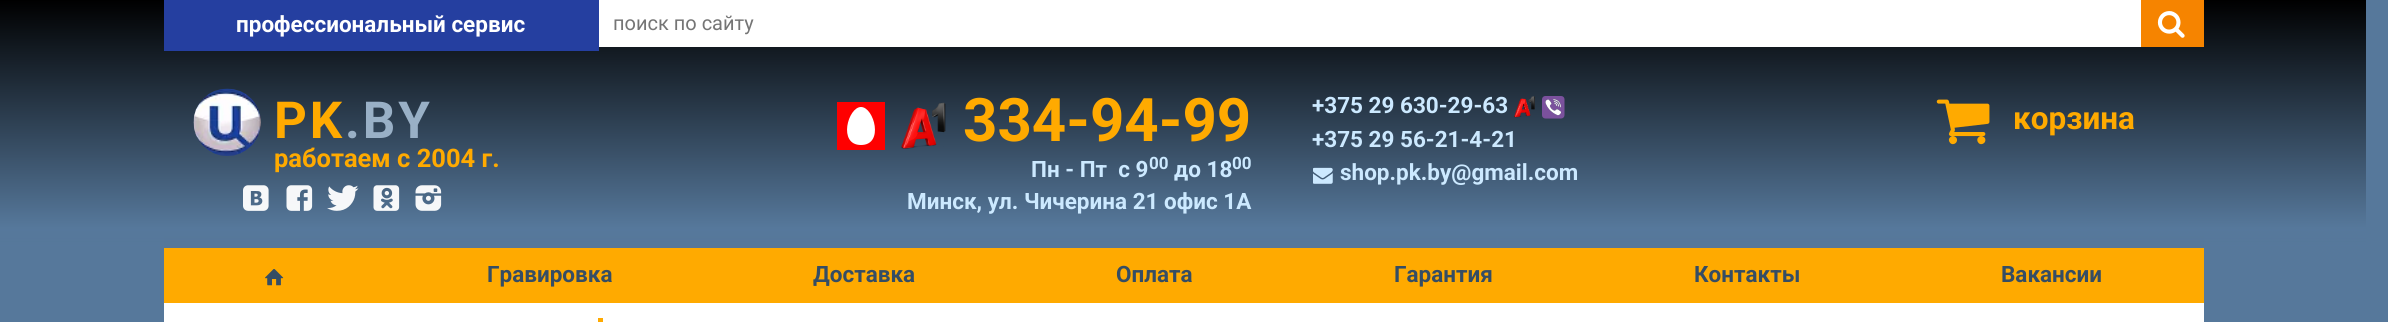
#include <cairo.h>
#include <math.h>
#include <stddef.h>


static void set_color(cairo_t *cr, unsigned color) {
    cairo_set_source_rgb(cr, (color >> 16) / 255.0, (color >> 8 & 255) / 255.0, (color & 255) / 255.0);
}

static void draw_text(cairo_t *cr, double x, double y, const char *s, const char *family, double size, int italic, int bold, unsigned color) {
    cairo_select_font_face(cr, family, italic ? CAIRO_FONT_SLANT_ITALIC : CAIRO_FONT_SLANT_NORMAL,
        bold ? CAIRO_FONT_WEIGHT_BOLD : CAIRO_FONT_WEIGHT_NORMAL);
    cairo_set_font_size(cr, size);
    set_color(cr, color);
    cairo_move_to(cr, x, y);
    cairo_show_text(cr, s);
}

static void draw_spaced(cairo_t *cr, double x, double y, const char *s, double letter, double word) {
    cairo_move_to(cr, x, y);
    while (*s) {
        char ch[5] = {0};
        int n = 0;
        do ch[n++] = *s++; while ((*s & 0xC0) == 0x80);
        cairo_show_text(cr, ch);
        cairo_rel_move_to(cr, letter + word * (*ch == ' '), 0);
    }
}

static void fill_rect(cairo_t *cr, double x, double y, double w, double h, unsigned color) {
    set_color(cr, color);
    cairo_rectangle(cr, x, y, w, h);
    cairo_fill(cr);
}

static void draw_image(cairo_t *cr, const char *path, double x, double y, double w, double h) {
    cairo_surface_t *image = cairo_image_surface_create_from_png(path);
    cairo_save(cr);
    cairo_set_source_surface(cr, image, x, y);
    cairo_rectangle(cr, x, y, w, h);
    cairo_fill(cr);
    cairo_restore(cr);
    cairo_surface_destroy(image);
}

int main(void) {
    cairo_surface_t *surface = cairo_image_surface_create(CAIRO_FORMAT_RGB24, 2388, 322);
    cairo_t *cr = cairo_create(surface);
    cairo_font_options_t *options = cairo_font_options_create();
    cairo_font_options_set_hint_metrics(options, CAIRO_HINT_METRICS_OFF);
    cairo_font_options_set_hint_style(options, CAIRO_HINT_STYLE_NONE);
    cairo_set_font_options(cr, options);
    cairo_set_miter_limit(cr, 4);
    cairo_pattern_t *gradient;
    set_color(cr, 0x56789B);
    cairo_paint(cr);
    gradient = cairo_pattern_create_linear(830, -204, 830, 285);
    cairo_pattern_add_color_stop_rgba(gradient, 0, 0.337, 0.471, 0.612, 1);
    cairo_pattern_add_color_stop_rgba(gradient, 0.14, 0.337, 0.471, 0.612, 1);
    cairo_pattern_add_color_stop_rgba(gradient, 0.14, 0.733, 0.8, 0.867, 1);
    cairo_pattern_add_color_stop_rgba(gradient, 0.19, 0.733, 0.8, 0.867, 1);
    cairo_pattern_add_color_stop_rgba(gradient, 0.19, 0.263, 0.369, 0.478, 1);
    cairo_pattern_add_color_stop_rgba(gradient, 1, 0.263, 0.369, 0.478, 1);
    cairo_set_source(cr, gradient);
    cairo_pattern_destroy(gradient);
    cairo_rectangle(cr, 164, 232, 1333, 16);
    cairo_fill(cr);
    draw_image(cr, "assets/img14.png", 1496, 232, 108, 16);
    fill_rect(cr, 1604, 232, 600, 16, 0x435E7A);
    gradient = cairo_pattern_create_linear(1183, 0, 1183, 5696);
    cairo_pattern_add_color_stop_rgba(gradient, 0, 0, 0, 0, 1);
    cairo_pattern_add_color_stop_rgba(gradient, 0.04, 0.337, 0.471, 0.608, 1);
    cairo_pattern_add_color_stop_rgba(gradient, 0.18, 0.337, 0.471, 0.608, 0);
    cairo_set_source(cr, gradient);
    cairo_pattern_destroy(gradient);
    cairo_rectangle(cr, 0, 0, 2366, 248);
    cairo_fill(cr);
    fill_rect(cr, 164, 0, 435, 51, 0x253FA0);
    draw_text(cr, 236, 32, "профессиональный сервис", "Roboto", 22.5, 0, 1, 0xFFFFFF);
    fill_rect(cr, 599, 0, 1542, 47, 0xFFFFFF);
    draw_text(cr, 613, 30, "поиск по сайту", "Roboto", 20, 0, 0, 0x757575);
    fill_rect(cr, 2141, 0, 63, 47, 0xF68400);
    draw_image(cr, "assets/img1.png", 2157, 11, 28, 27);
    draw_image(cr, "assets/img2.png", 193, 88, 68, 68);
    cairo_select_font_face(cr, "Roboto", CAIRO_FONT_SLANT_NORMAL, CAIRO_FONT_WEIGHT_BOLD);
    cairo_set_font_size(cr, 51);
    set_color(cr, 0xFFAA00);
    draw_spaced(cr, 274, 138, "PK", 3, 0);
    set_color(cr, 0x99B0C6);
    draw_spaced(cr, 345, 138, ".BY", 3, 0);
    draw_text(cr, 274, 167, "работаем с 2004 г.", "Roboto", 25.5, 0, 1, 0xFFAA00);
    fill_rect(cr, 837, 102, 48, 48, 0xFF0000);
    set_color(cr, 0xFFFFFF);
    cairo_new_path(cr);
    cairo_move_to(cr, 861, 107);
    cairo_curve_to(cr, 874, 107, 884.5, 145, 861, 145);
    cairo_curve_to(cr, 837.5, 145, 848, 107, 861, 107);
    cairo_fill(cr);
    draw_image(cr, "assets/img3.png", 901, 102, 45, 47);
    draw_text(cr, 963, 141, "334-94-99", "Roboto", 60, 0, 1, 0xFFAA00);
    draw_text(cr, 1031, 177, "Пн - Пт  с 9", "Roboto", 22.5, 0, 1, 0xCCE9FF);
    draw_text(cr, 1149, 169, "00", "Roboto", 17, 0, 1, 0xCCE9FF);
    draw_text(cr, 1174, 177, "до 18", "Roboto", 22.5, 0, 1, 0xCCE9FF);
    draw_text(cr, 1232, 169, "00", "Roboto", 17, 0, 1, 0xCCE9FF);
    draw_text(cr, 907, 209, "Минск, ул. Чичерина 21 офис 1А", "Roboto", 22.5, 0, 1, 0xCCE9FF);
    draw_text(cr, 1312, 113, "+375 29 630-29-63", "Roboto", 22.5, 0, 1, 0xCCE9FF);
    draw_image(cr, "assets/img4.png", 1514, 96, 21, 22);
    draw_image(cr, "assets/img5.png", 1542, 96, 23, 23);
    draw_text(cr, 1312, 147, "+375 29 56-21-4-21", "Roboto", 22.5, 0, 1, 0xCCE9FF);
    draw_image(cr, "assets/img6.png", 1313, 167, 20, 17);
    draw_text(cr, 1340, 180, "shop.pk.by@gmail.com", "Roboto", 22.5, 0, 1, 0xCCE9FF);
    draw_image(cr, "assets/img7.png", 1936, 99, 54, 46);
    draw_text(cr, 2013, 129, "корзина", "Roboto", 31.5, 0, 1, 0xFFAA00);
    draw_image(cr, "assets/img8.png", 243, 185, 26, 26);
    draw_image(cr, "assets/img9.png", 286, 185, 27, 26);
    draw_image(cr, "assets/img10.png", 327, 185, 32, 26);
    draw_image(cr, "assets/img11.png", 373, 185, 27, 26);
    draw_image(cr, "assets/img12.png", 415, 185, 27, 26);
    fill_rect(cr, 164, 248, 2040, 55, 0xFFAA00);
    draw_image(cr, "assets/img13.png", 265, 269, 19, 17);
    draw_text(cr, 487, 282, "Гравировка", "Roboto", 22.5, 0, 1, 0x354D64);
    draw_text(cr, 813, 282, "Доставка", "Roboto", 22.5, 0, 1, 0x354D64);
    draw_text(cr, 1116, 282, "Оплата", "Roboto", 22.5, 0, 1, 0x354D64);
    draw_text(cr, 1394, 282, "Гарантия", "Roboto", 22.5, 0, 1, 0x354D64);
    draw_text(cr, 1694, 282, "Контакты", "Roboto", 22.5, 0, 1, 0x354D64);
    draw_text(cr, 2001, 282, "Вакансии", "Roboto", 22.5, 0, 1, 0x354D64);
    fill_rect(cr, 164, 303, 2040, 19, 0xFFFFFF);
    set_color(cr, 0xFFAA00);
    cairo_new_path(cr);
    cairo_move_to(cr, 598, 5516);
    cairo_line_to(cr, 598, 318);
    cairo_line_to(cr, 603, 318);
    cairo_line_to(cr, 603, 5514);
    cairo_close_path(cr);
    cairo_fill(cr);
    cairo_surface_write_to_png(surface, "output.png");
    cairo_font_options_destroy(options);
    cairo_destroy(cr);
    cairo_surface_destroy(surface);
    return 0;
}
